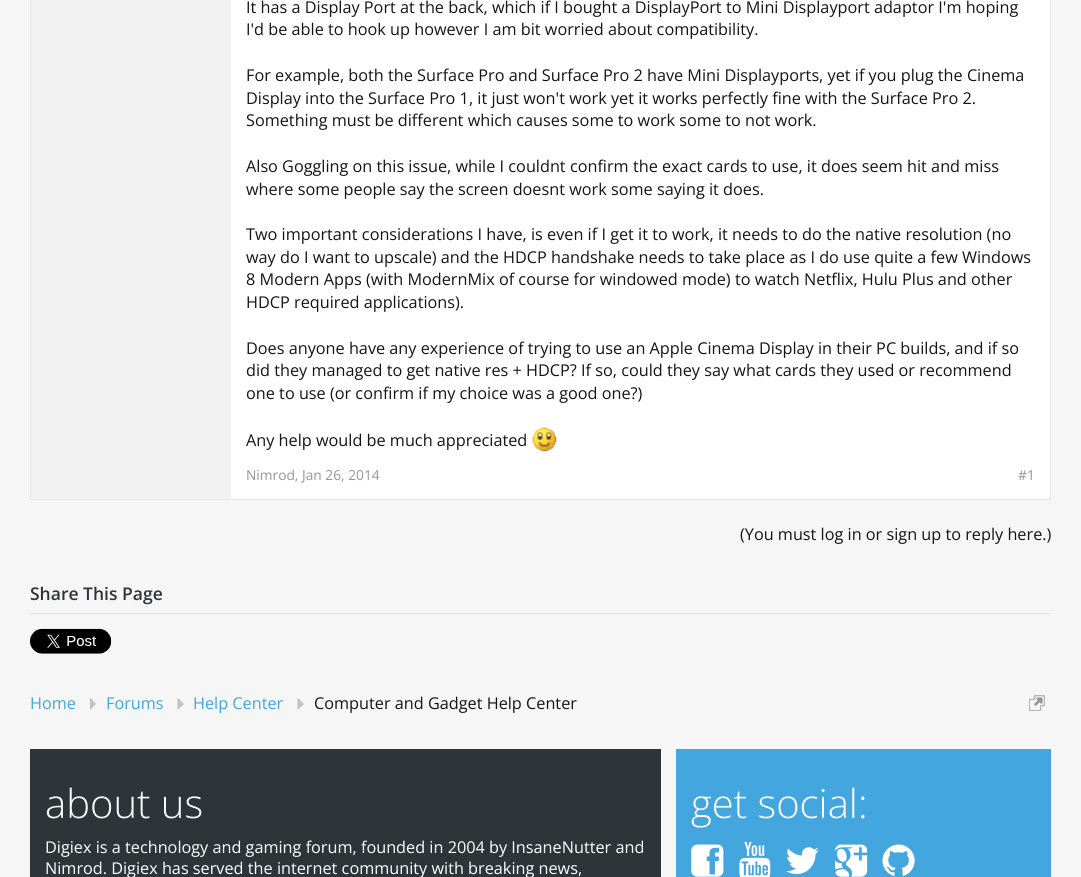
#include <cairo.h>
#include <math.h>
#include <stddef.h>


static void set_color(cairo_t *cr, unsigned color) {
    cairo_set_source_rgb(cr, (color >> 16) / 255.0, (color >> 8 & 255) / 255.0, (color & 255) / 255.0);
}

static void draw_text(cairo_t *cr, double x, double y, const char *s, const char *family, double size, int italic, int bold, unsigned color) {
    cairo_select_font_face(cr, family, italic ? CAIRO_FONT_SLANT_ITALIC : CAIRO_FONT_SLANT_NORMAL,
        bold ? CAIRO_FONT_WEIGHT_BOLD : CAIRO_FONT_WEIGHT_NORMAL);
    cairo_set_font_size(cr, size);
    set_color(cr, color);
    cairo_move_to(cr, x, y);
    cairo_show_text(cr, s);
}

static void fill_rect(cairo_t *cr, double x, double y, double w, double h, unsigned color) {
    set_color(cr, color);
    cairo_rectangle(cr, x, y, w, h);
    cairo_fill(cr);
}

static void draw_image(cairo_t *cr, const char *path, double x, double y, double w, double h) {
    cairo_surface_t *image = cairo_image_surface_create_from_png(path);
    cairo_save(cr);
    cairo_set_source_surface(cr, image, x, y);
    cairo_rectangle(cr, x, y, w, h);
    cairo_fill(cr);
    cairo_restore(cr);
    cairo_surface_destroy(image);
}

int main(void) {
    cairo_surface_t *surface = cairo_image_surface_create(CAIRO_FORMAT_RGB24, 1081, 877);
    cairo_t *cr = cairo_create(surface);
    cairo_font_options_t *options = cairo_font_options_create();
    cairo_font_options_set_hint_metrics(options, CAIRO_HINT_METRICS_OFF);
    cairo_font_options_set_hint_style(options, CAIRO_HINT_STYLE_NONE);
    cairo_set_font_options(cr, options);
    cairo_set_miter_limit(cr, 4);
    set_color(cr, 0xF6F6F6);
    cairo_paint(cr);
    fill_rect(cr, 31, 0, 200, 499, 0xF2F2F2);
    cairo_rectangle(cr, 30.5, -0.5, 1020, 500);
    set_color(cr, 0xE4E4E4);
    cairo_set_line_width(cr, 1);
    cairo_stroke(cr);
    fill_rect(cr, 231, 0, 819, 499, 0xFFFFFF);
    draw_text(cr, 246, 13, "It has a Display Port at the back, which if I bought a DisplayPort to Mini Displayport adaptor I'm hoping", "Open Sans", 16.25, 0, 0, 0x141414);
    draw_text(cr, 246, 35, "I'd be able to hook up however I am bit worried about compatibility.", "Open Sans", 16.25, 0, 0, 0x141414);
    draw_text(cr, 246, 81, "For example, both the Surface Pro and Surface Pro 2 have Mini Displayports, yet if you plug the Cinema", "Open Sans", 16.25, 0, 0, 0x141414);
    draw_text(cr, 246, 104, "Display into the Surface Pro 1, it just won't work yet it works perfectly fine with the Surface Pro 2.", "Open Sans", 16.25, 0, 0, 0x141414);
    draw_text(cr, 246, 126, "Something must be different which causes some to work some to not work.", "Open Sans", 16.25, 0, 0, 0x141414);
    draw_text(cr, 246, 172, "Also Goggling on this issue, while I couldnt confirm the exact cards to use, it does seem hit and miss", "Open Sans", 16.25, 0, 0, 0x141414);
    draw_text(cr, 246, 195, "where some people say the screen doesnt work some saying it does.", "Open Sans", 16.25, 0, 0, 0x141414);
    draw_text(cr, 246, 240, "Two important considerations I have, is even if I get it to work, it needs to do the native resolution (no", "Open Sans", 16.25, 0, 0, 0x141414);
    draw_text(cr, 246, 263, "way do I want to upscale) and the HDCP handshake needs to take place as I do use quite a few Windows", "Open Sans", 16.25, 0, 0, 0x141414);
    draw_text(cr, 246, 285, "8 Modern Apps (with ModernMix of course for windowed mode) to watch Netflix, Hulu Plus and other", "Open Sans", 16.25, 0, 0, 0x141414);
    draw_text(cr, 246, 308, "HDCP required applications).", "Open Sans", 16.25, 0, 0, 0x141414);
    draw_text(cr, 246, 354, "Does anyone have any experience of trying to use an Apple Cinema Display in their PC builds, and if so", "Open Sans", 16.25, 0, 0, 0x141414);
    draw_text(cr, 246, 376, "did they managed to get native res + HDCP? If so, could they say what cards they used or recommend", "Open Sans", 16.25, 0, 0, 0x141414);
    draw_text(cr, 246, 399, "one to use (or confirm if my choice was a good one?)", "Open Sans", 16.25, 0, 0, 0x141414);
    draw_text(cr, 246, 446, "Any help would be much appreciated", "Open Sans", 16.25, 0, 0, 0x141414);
    draw_image(cr, "assets/img1.png", 532, 427, 25, 25);
    draw_text(cr, 246, 480, "Nimrod, Jan 26, 2014", "Open Sans", 13.75, 0, 0, 0x969696);
    draw_text(cr, 1018, 480, "#1", "Open Sans", 13.75, 0, 0, 0x969696);
    draw_text(cr, 740, 540, "(You must log in or sign up to reply here.)", "Open Sans", 16.25, 0, 0, 0x141414);
    fill_rect(cr, 30, 613, 1021, 1, 0xE4E4E4);
    draw_text(cr, 30, 600, "Share This Page", "Open Sans SemiBold", 17.5, 0, 0, 0x2E3539);
    draw_image(cr, "assets/img2.png", 30, 628, 82, 26);
    draw_text(cr, 30, 709, "Home", "Open Sans", 16.25, 0, 0, 0x43A6DF);
    set_color(cr, 0xC2C2C2);
    cairo_new_path(cr);
    cairo_move_to(cr, 90, 710);
    cairo_line_to(cr, 90, 697.5);
    cairo_line_to(cr, 96, 704);
    cairo_close_path(cr);
    cairo_fill(cr);
    draw_text(cr, 106, 709, "Forums", "Open Sans", 16.25, 0, 0, 0x43A6DF);
    set_color(cr, 0xC2C2C2);
    cairo_new_path(cr);
    cairo_move_to(cr, 177.5, 710);
    cairo_line_to(cr, 177.5, 697.5);
    cairo_line_to(cr, 184, 704);
    cairo_close_path(cr);
    cairo_fill(cr);
    draw_text(cr, 193, 709, "Help Center", "Open Sans", 16.25, 0, 0, 0x43A6DF);
    set_color(cr, 0xC2C2C2);
    cairo_new_path(cr);
    cairo_move_to(cr, 297.5, 710);
    cairo_line_to(cr, 297.5, 697.5);
    cairo_line_to(cr, 304, 704);
    cairo_close_path(cr);
    cairo_fill(cr);
    draw_text(cr, 314, 709, "Computer and Gadget Help Center", "Open Sans", 16.25, 0, 0, 0x141414);
    draw_image(cr, "assets/img3.png", 1029, 695, 16, 16);
    fill_rect(cr, 30, 749, 631, 128, 0x2E3539);
    draw_text(cr, 45, 818, "about us", "Open Sans Light", 40, 0, 0, 0xFFFFFF);
    draw_text(cr, 45, 853, "Digiex is a technology and gaming forum, founded in 2004 by InsaneNutter and", "Open Sans", 16.25, 0, 0, 0xFFFFFF);
    draw_text(cr, 45, 874, "Nimrod. Digiex has served the internet community with breaking news,", "Open Sans", 16.25, 0, 0, 0xFFFFFF);
    fill_rect(cr, 676, 749, 375, 128, 0x43A6DF);
    draw_text(cr, 691, 818, "get social:", "Open Sans Light", 40, 0, 0, 0xFFFFFF);
    draw_image(cr, "assets/img4.png", 691, 844, 33, 33);
    draw_image(cr, "assets/img5.png", 739, 841, 32, 36);
    draw_image(cr, "assets/img6.png", 786, 847, 33, 27);
    draw_image(cr, "assets/img7.png", 835, 844, 33, 33);
    draw_image(cr, "assets/img8.png", 882, 844, 33, 32);
    cairo_surface_write_to_png(surface, "output.png");
    cairo_font_options_destroy(options);
    cairo_destroy(cr);
    cairo_surface_destroy(surface);
    return 0;
}
